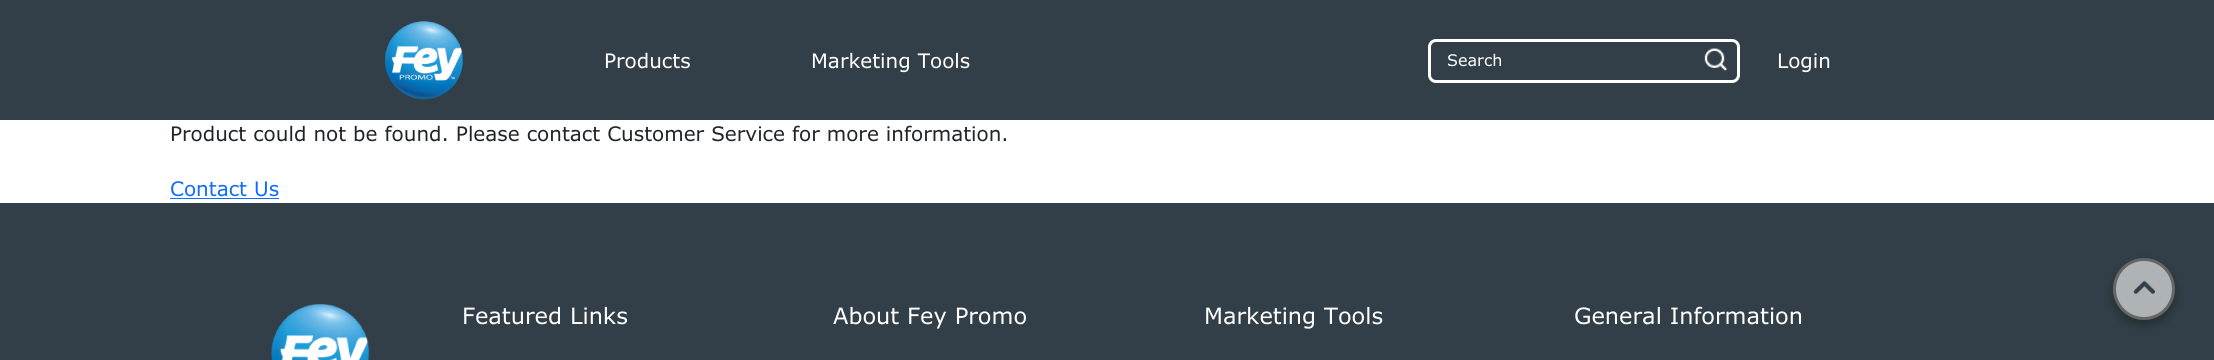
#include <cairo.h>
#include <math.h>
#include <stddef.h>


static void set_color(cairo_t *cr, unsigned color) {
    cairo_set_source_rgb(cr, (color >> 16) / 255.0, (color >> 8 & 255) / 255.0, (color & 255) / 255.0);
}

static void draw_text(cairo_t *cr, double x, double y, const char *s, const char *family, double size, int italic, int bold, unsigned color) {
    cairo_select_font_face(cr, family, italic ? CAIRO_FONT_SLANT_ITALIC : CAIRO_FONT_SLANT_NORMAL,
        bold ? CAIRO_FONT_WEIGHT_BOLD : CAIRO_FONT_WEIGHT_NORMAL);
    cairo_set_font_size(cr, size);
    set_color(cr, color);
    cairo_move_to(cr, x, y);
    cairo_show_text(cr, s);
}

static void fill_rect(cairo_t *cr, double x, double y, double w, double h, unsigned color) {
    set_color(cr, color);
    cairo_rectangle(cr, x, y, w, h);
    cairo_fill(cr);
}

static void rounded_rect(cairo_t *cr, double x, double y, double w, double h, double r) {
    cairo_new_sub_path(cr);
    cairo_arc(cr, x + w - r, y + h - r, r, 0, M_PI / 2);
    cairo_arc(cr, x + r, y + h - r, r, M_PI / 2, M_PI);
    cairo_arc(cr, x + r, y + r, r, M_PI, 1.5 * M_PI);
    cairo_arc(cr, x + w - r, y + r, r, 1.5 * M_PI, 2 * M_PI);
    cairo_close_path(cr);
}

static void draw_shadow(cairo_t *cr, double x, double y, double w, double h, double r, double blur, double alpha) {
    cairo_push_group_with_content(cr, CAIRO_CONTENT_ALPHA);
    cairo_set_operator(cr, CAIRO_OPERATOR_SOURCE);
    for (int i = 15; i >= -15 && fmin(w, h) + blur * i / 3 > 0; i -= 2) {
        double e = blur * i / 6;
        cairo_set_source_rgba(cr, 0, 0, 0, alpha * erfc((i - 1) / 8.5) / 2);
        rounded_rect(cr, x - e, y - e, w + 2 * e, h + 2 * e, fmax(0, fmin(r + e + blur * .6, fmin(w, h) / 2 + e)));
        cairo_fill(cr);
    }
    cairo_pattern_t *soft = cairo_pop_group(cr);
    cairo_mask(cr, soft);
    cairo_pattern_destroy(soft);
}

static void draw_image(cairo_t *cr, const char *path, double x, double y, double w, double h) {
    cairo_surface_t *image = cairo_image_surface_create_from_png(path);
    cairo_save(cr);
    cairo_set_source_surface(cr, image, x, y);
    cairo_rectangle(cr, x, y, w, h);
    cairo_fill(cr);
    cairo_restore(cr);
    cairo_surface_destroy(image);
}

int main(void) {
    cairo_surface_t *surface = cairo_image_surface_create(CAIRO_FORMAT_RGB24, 2214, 360);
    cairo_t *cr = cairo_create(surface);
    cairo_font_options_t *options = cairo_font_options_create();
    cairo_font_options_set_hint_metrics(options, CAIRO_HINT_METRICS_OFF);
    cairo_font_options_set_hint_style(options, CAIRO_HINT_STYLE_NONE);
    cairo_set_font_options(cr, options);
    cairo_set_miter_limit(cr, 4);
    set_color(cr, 0xFFFFFF);
    cairo_paint(cr);
    fill_rect(cr, 0, 0, 2214, 120, 0x333F48);
    draw_image(cr, "assets/img1.png", 385, 21, 78, 79);
    draw_text(cr, 604, 68, "Products", "Verdana", 20, 0, 0, 0xFFFFFF);
    draw_text(cr, 811, 68, "Marketing Tools", "Verdana", 20, 0, 0, 0xFFFFFF);
    rounded_rect(cr, 1429.5, 40.5, 309, 41, 6.5);
    cairo_set_line_width(cr, 3);
    cairo_stroke(cr);
    draw_text(cr, 1447, 66, "Search", "Verdana", 16, 0, 0, 0xFFFFFF);
    draw_image(cr, "assets/img2.png", 1704, 48, 23, 23);
    draw_text(cr, 1777, 68, "Login", "Verdana", 20, 0, 0, 0xFFFFFF);
    draw_text(cr, 170, 141, "Product could not be found. Please contact Customer Service for more information.", "Verdana", 20, 0, 0, 0x212529);
    draw_text(cr, 170, 196, "Contact Us", "Verdana", 20, 0, 0, 0x0D6EFD);
    fill_rect(cr, 170, 198, 109, 1, 0x0D6EFD);
    fill_rect(cr, 0, 203, 2214, 157, 0x333F48);
    draw_image(cr, "assets/img3.png", 271, 304, 99, 56);
    draw_text(cr, 462, 324, "Featured Links", "Verdana", 22.5, 0, 0, 0xFFFFFF);
    draw_text(cr, 833, 324, "About Fey Promo", "Verdana", 22.5, 0, 0, 0xFFFFFF);
    draw_text(cr, 1204, 324, "Marketing Tools", "Verdana", 22.5, 0, 0, 0xFFFFFF);
    draw_text(cr, 1574, 324, "General Information", "Verdana", 22.5, 0, 0, 0xFFFFFF);
    cairo_save(cr);
    cairo_set_fill_rule(cr, CAIRO_FILL_RULE_EVEN_ODD);
    cairo_new_path(cr);
    cairo_move_to(cr, 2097, 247);
    cairo_line_to(cr, 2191, 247);
    cairo_line_to(cr, 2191, 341);
    cairo_line_to(cr, 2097, 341);
    cairo_close_path(cr);
    cairo_move_to(cr, 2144, 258);
    cairo_curve_to(cr, 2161, 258, 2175, 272, 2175, 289);
    cairo_curve_to(cr, 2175, 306, 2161, 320, 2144, 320);
    cairo_curve_to(cr, 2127, 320, 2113, 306, 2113, 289);
    cairo_curve_to(cr, 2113, 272, 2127, 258, 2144, 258);
    cairo_close_path(cr);
    cairo_clip(cr);
    set_color(cr, 0x000000);
    draw_shadow(cr, 2113, 263, 62, 62, 31, 5, 0.3);
    cairo_restore(cr);
    cairo_set_source_rgba(cr, 0.945, 0.945, 0.945, 0.65);
    cairo_arc(cr, 2144, 289, 29.5, 0, 2 * M_PI);
    cairo_fill_preserve(cr);
    set_color(cr, 0x666666);
    cairo_stroke(cr);
    draw_image(cr, "assets/img4.png", 2133, 280, 22, 14);
    cairo_surface_write_to_png(surface, "output.png");
    cairo_font_options_destroy(options);
    cairo_destroy(cr);
    cairo_surface_destroy(surface);
    return 0;
}
